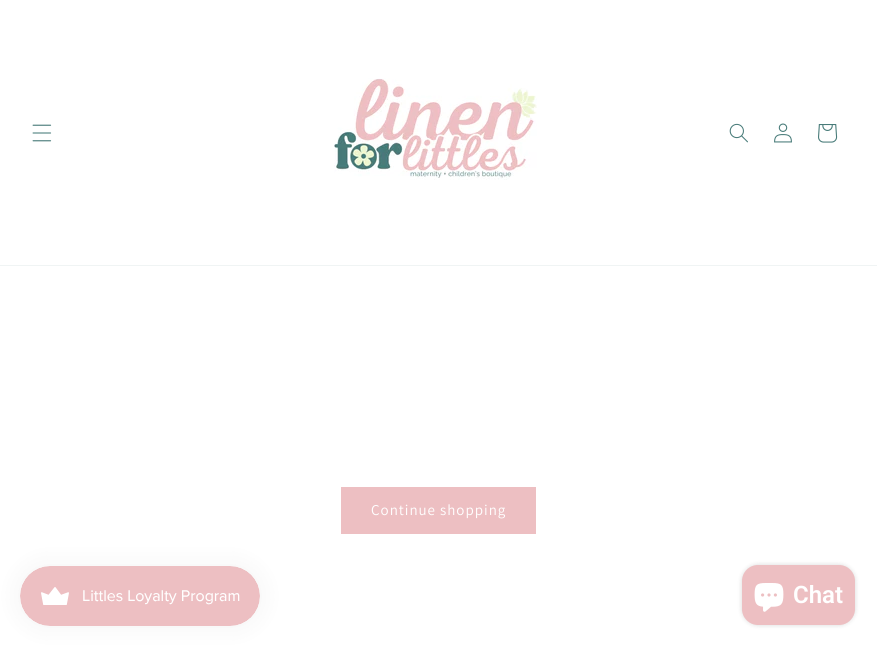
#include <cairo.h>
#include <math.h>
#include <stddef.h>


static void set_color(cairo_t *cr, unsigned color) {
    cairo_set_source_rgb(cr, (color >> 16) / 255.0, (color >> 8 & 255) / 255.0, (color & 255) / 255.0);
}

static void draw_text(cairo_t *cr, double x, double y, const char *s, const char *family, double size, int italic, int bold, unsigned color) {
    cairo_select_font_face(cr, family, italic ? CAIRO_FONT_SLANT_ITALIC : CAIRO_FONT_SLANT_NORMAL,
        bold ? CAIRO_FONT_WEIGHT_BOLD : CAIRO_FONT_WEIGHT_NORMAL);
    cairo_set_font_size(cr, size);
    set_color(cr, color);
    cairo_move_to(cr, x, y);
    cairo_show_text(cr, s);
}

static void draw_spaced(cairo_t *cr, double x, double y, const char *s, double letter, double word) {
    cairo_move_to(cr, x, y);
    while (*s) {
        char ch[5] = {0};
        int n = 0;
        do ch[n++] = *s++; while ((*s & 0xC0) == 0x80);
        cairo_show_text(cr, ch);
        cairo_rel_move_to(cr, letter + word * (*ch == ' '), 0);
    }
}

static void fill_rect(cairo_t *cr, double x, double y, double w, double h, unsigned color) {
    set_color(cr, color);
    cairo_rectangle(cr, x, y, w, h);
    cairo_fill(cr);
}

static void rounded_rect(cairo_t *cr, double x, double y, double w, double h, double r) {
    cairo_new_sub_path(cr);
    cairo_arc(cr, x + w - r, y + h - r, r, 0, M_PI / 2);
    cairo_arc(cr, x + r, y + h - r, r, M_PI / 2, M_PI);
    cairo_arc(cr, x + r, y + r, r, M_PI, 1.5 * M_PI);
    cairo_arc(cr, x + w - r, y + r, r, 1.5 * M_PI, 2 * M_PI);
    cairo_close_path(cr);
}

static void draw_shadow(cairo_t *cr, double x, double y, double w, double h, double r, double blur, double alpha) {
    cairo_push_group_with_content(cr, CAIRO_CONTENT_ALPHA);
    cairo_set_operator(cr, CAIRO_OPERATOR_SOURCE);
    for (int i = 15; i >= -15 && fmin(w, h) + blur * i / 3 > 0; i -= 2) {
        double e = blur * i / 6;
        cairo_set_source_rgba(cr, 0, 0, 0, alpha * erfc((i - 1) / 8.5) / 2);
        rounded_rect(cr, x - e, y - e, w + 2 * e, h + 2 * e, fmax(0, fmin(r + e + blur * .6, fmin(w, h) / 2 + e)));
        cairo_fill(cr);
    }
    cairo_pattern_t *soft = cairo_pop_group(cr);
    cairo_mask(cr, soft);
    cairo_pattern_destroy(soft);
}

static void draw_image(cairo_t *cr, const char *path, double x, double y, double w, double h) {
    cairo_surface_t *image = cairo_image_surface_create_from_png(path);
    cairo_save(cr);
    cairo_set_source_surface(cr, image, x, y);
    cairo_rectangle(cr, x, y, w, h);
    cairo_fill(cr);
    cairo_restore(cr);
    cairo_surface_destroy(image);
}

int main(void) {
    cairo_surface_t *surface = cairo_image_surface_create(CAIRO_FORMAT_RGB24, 877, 646);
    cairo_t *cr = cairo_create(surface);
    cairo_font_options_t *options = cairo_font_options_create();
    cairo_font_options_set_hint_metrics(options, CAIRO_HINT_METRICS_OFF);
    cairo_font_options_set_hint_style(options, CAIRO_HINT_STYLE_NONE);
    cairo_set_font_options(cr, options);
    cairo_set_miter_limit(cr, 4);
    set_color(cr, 0xFFFFFF);
    cairo_paint(cr);
    draw_image(cr, "assets/img1.png", 32, 124, 20, 18);
    draw_image(cr, "assets/img2.png", 334, 78, 203, 102);
    draw_image(cr, "assets/img3.png", 729, 123, 19, 20);
    draw_image(cr, "assets/img4.png", 774, 123, 18, 20);
    draw_image(cr, "assets/img5.png", 818, 124, 20, 19);
    fill_rect(cr, 0, 265, 877, 1, 0xF0F4F4);
    fill_rect(cr, 341, 487, 195, 47, 0xEDBFC2);
    cairo_select_font_face(cr, "Assistant", CAIRO_FONT_SLANT_NORMAL, CAIRO_FONT_WEIGHT_NORMAL);
    cairo_set_font_size(cr, 15);
    set_color(cr, 0xFFFFFF);
    draw_spaced(cr, 371, 515, "Continue shopping", 1, 0);
    set_color(cr, 0x000000);
    draw_shadow(cr, 20, 566, 240, 60, 30, 12.5, 0.05);
    draw_image(cr, "assets/img6.png", 20, 566, 240, 60);
    draw_shadow(cr, 742, 565, 113, 60, 16, 2.5, 0.15);
    set_color(cr, 0xEDBFC2);
    rounded_rect(cr, 742, 565, 113, 60, 16);
    cairo_fill(cr);
    draw_image(cr, "assets/img7.png", 754, 583, 30, 29);
    draw_text(cr, 793, 603, "Chat", "Roboto SemiBold", 24, 0, 0, 0xFFFFFF);
    cairo_surface_write_to_png(surface, "output.png");
    cairo_font_options_destroy(options);
    cairo_destroy(cr);
    cairo_surface_destroy(surface);
    return 0;
}
